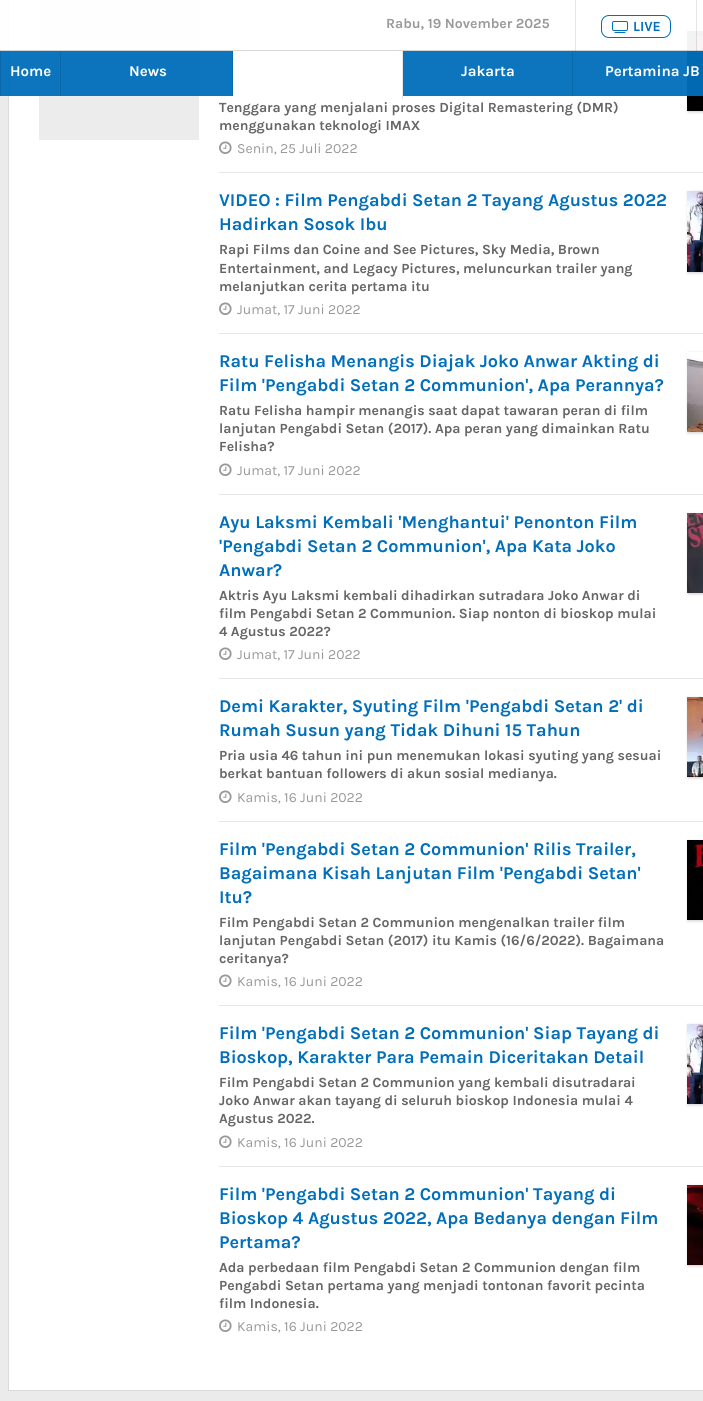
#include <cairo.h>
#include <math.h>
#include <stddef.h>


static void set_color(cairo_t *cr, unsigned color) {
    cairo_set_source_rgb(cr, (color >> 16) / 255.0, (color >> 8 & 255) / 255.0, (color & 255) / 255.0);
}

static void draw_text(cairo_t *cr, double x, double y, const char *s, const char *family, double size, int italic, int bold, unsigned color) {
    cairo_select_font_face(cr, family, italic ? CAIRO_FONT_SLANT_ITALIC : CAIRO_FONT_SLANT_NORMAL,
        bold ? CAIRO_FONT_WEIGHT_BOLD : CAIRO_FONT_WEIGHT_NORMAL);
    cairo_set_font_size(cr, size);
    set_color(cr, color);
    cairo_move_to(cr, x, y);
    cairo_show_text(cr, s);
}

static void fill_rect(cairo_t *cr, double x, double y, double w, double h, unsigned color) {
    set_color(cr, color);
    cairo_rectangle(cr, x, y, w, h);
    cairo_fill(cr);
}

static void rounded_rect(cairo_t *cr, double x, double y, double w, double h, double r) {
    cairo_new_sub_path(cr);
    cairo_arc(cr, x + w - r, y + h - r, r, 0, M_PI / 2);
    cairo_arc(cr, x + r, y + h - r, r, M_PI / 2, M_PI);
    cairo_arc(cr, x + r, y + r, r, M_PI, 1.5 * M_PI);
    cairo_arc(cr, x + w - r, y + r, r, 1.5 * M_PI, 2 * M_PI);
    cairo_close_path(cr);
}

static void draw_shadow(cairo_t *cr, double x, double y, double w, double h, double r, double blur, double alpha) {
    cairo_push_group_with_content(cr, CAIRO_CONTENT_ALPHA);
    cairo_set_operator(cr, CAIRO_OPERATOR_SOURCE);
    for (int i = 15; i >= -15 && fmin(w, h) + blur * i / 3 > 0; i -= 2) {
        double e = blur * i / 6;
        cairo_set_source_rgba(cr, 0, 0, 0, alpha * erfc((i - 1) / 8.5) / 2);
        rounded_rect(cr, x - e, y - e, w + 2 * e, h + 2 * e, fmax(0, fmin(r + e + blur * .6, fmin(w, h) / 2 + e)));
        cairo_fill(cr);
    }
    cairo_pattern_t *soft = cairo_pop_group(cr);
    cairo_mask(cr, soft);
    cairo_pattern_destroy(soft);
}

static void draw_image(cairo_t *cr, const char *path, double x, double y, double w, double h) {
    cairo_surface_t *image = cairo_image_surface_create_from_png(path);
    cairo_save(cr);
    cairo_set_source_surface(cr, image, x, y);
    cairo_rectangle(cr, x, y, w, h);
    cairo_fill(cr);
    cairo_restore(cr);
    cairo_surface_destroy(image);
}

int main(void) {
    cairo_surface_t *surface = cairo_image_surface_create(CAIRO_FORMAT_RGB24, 703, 1401);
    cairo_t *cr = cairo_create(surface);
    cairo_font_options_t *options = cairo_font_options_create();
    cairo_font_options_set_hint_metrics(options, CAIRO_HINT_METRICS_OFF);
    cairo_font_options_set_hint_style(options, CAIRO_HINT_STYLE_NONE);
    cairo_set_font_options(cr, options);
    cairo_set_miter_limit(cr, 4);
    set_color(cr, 0xEBEBEB);
    cairo_paint(cr);
    set_color(cr, 0xFFFFFF);
    cairo_rectangle(cr, 8.5, -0.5, 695, 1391);
    cairo_fill_preserve(cr);
    set_color(cr, 0xD9D9D9);
    cairo_set_line_width(cr, 1);
    cairo_stroke(cr);
    fill_rect(cr, 39, 0, 160, 140, 0xECECEC);
    set_color(cr, 0x000000);
    draw_shadow(cr, 688, 32, 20, 80, 0, 1.5, 0.2);
    draw_image(cr, "assets/img2.png", 687, 31, 16, 80);
    cairo_set_source_rgba(cr, 0.004, 0.435, 0.729, 0.95);
    cairo_rectangle(cr, 1, 50, 702, 46);
    cairo_fill(cr);
    fill_rect(cr, 60, 50, 1, 46, 0x0B69AA);
    fill_rect(cr, 0, 50, 1, 46, 0x0B69AA);
    cairo_set_source_rgba(cr, 0, 0, 0, 0.1);
    cairo_rectangle(cr, 232, 50, 1, 46);
    cairo_fill(cr);
    fill_rect(cr, 233, 50, 169, 46, 0xFFFFFF);
    fill_rect(cr, 402, 50, 1, 49, 0xE6E6E6);
    cairo_set_source_rgba(cr, 0, 0, 0, 0.1);
    cairo_rectangle(cr, 572, 50, 1, 46);
    cairo_fill(cr);
    fill_rect(cr, 219, 12, 484, 1, 0xE6E6E6);
    cairo_set_source_rgba(cr, 1, 1, 1, 0.95);
    cairo_rectangle(cr, 0, 0, 703, 51);
    cairo_fill(cr);
    cairo_set_source_rgba(cr, 0, 0, 0, 0.15);
    cairo_rectangle(cr, 0, 50, 703, 1);
    cairo_fill(cr);
    cairo_set_source_rgba(cr, 0, 0, 0, 0.1);
    cairo_rectangle(cr, 575, 0, 1, 51);
    cairo_fill(cr);
    draw_text(cr, 386, 28, "Rabu, 19 November 2025", "Karla", 14, 0, 1, 0x999999);
    cairo_set_source_rgba(cr, 0, 0, 0, 0.1);
    cairo_rectangle(cr, 696, 0, 1, 51);
    cairo_fill(cr);
    rounded_rect(cr, 601.5, 15.5, 69, 22, 7.5);
    set_color(cr, 0x016FBA);
    cairo_stroke(cr);
    draw_image(cr, "assets/img1.png", 612, 21, 16, 12);
    draw_text(cr, 633, 31, "LIVE", "Karla", 14, 0, 1, 0x016FBA);
    draw_text(cr, 10, 76, "Home", "Karla", 15, 0, 1, 0xFFFFFF);
    draw_text(cr, 129, 76, "News", "Karla", 15, 0, 1, 0xFFFFFF);
    draw_text(cr, 461, 76, "Jakarta", "Karla", 15, 0, 1, 0xFFFFFF);
    draw_text(cr, 605, 76, "Pertamina JB", "Karla", 15, 0, 1, 0xFFFFFF);
    fill_rect(cr, 219, 172, 484, 1, 0xE6E6E6);
    draw_text(cr, 219, 112, "Tenggara yang menjalani proses Digital Remastering (DMR)", "Karla", 14, 0, 1, 0x666666);
    draw_text(cr, 219, 130, "menggunakan teknologi IMAX", "Karla", 14, 0, 1, 0x666666);
    draw_image(cr, "assets/img3.png", 219, 141, 13, 13);
    draw_text(cr, 237, 153, "Senin, 25 Juli 2022", "Karla", 14, 0, 0, 0x999999);
    fill_rect(cr, 219, 333, 484, 1, 0xE6E6E6);
    draw_text(cr, 219, 206, "VIDEO : Film Pengabdi Setan 2 Tayang Agustus 2022", "Karla", 18, 0, 1, 0x016FBA);
    draw_text(cr, 219, 230, "Hadirkan Sosok Ibu", "Karla", 18, 0, 1, 0x016FBA);
    draw_text(cr, 219, 254, "Rapi Films dan Coine and See Pictures, Sky Media, Brown", "Karla", 14, 0, 1, 0x666666);
    draw_text(cr, 219, 273, "Entertainment, and Legacy Pictures, meluncurkan trailer yang", "Karla", 14, 0, 1, 0x666666);
    draw_text(cr, 219, 291, "melanjutkan cerita pertama itu", "Karla", 14, 0, 1, 0x666666);
    draw_image(cr, "assets/img3.png", 219, 302, 13, 13);
    draw_text(cr, 237, 314, "Jumat, 17 Juni 2022", "Karla", 14, 0, 0, 0x999999);
    set_color(cr, 0x000000);
    draw_shadow(cr, 688, 192, 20, 81, 0, 1.5, 0.2);
    draw_image(cr, "assets/img4.png", 687, 191, 16, 81);
    fill_rect(cr, 219, 494, 484, 1, 0xE6E6E6);
    draw_text(cr, 219, 367, "Ratu Felisha Menangis Diajak Joko Anwar Akting di", "Karla", 18, 0, 1, 0x016FBA);
    draw_text(cr, 219, 391, "Film 'Pengabdi Setan 2 Communion', Apa Perannya?", "Karla", 18, 0, 1, 0x016FBA);
    draw_text(cr, 219, 415, "Ratu Felisha hampir menangis saat dapat tawaran peran di film", "Karla", 14, 0, 1, 0x666666);
    draw_text(cr, 219, 433, "lanjutan Pengabdi Setan (2017). Apa peran yang dimainkan Ratu", "Karla", 14, 0, 1, 0x666666);
    draw_text(cr, 219, 451, "Felisha?", "Karla", 14, 0, 1, 0x666666);
    draw_image(cr, "assets/img3.png", 219, 463, 13, 13);
    draw_text(cr, 237, 475, "Jumat, 17 Juni 2022", "Karla", 14, 0, 0, 0x999999);
    cairo_save(cr);
    cairo_set_fill_rule(cr, CAIRO_FILL_RULE_EVEN_ODD);
    cairo_new_path(cr);
    cairo_move_to(cr, 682, 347);
    cairo_line_to(cr, 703, 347);
    cairo_line_to(cr, 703, 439);
    cairo_line_to(cr, 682, 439);
    cairo_close_path(cr);
    cairo_move_to(cr, 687, 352);
    cairo_line_to(cr, 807, 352);
    cairo_line_to(cr, 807, 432);
    cairo_line_to(cr, 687, 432);
    cairo_close_path(cr);
    cairo_clip(cr);
    set_color(cr, 0x000000);
    draw_shadow(cr, 688, 353, 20, 80, 0, 1.5, 0.2);
    cairo_restore(cr);
    draw_image(cr, "assets/img5.png", 687, 358, 16, 74);
    fill_rect(cr, 219, 678, 484, 1, 0xE6E6E6);
    draw_text(cr, 219, 528, "Ayu Laksmi Kembali 'Menghantui' Penonton Film", "Karla", 18, 0, 1, 0x016FBA);
    draw_text(cr, 219, 552, "'Pengabdi Setan 2 Communion', Apa Kata Joko", "Karla", 18, 0, 1, 0x016FBA);
    draw_text(cr, 219, 576, "Anwar?", "Karla", 18, 0, 1, 0x016FBA);
    draw_text(cr, 219, 600, "Aktris Ayu Laksmi kembali dihadirkan sutradara Joko Anwar di", "Karla", 14, 0, 1, 0x666666);
    draw_text(cr, 219, 618, "film Pengabdi Setan 2 Communion. Siap nonton di bioskop mulai", "Karla", 14, 0, 1, 0x666666);
    draw_text(cr, 219, 636, "4 Agustus 2022?", "Karla", 14, 0, 1, 0x666666);
    draw_image(cr, "assets/img3.png", 219, 647, 13, 13);
    draw_text(cr, 237, 659, "Jumat, 17 Juni 2022", "Karla", 14, 0, 0, 0x999999);
    set_color(cr, 0x000000);
    draw_shadow(cr, 688, 514, 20, 80, 0, 1.5, 0.2);
    draw_image(cr, "assets/img6.png", 687, 513, 16, 80);
    fill_rect(cr, 219, 821, 484, 1, 0xE6E6E6);
    draw_text(cr, 219, 712, "Demi Karakter, Syuting Film 'Pengabdi Setan 2' di", "Karla", 18, 0, 1, 0x016FBA);
    draw_text(cr, 219, 736, "Rumah Susun yang Tidak Dihuni 15 Tahun", "Karla", 18, 0, 1, 0x016FBA);
    draw_text(cr, 219, 760, "Pria usia 46 tahun ini pun menemukan lokasi syuting yang sesuai", "Karla", 14, 0, 1, 0x666666);
    draw_text(cr, 219, 778, "berkat bantuan followers di akun sosial medianya.", "Karla", 14, 0, 1, 0x666666);
    draw_image(cr, "assets/img3.png", 219, 790, 13, 13);
    draw_text(cr, 237, 802, "Kamis, 16 Juni 2022", "Karla", 14, 0, 0, 0x999999);
    set_color(cr, 0x000000);
    draw_shadow(cr, 688, 698, 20, 80, 0, 1.5, 0.2);
    draw_image(cr, "assets/img7.png", 687, 697, 16, 80);
    fill_rect(cr, 219, 1005, 484, 1, 0xE6E6E6);
    draw_text(cr, 219, 855, "Film 'Pengabdi Setan 2 Communion' Rilis Trailer,", "Karla", 18, 0, 1, 0x016FBA);
    draw_text(cr, 219, 879, "Bagaimana Kisah Lanjutan Film 'Pengabdi Setan'", "Karla", 18, 0, 1, 0x016FBA);
    draw_text(cr, 219, 903, "Itu?", "Karla", 18, 0, 1, 0x016FBA);
    draw_text(cr, 219, 927, "Film Pengabdi Setan 2 Communion mengenalkan trailer film", "Karla", 14, 0, 1, 0x666666);
    draw_text(cr, 219, 945, "lanjutan Pengabdi Setan (2017) itu Kamis (16/6/2022). Bagaimana", "Karla", 14, 0, 1, 0x666666);
    draw_text(cr, 219, 963, "ceritanya?", "Karla", 14, 0, 1, 0x666666);
    draw_image(cr, "assets/img3.png", 219, 974, 13, 13);
    draw_text(cr, 237, 986, "Kamis, 16 Juni 2022", "Karla", 14, 0, 0, 0x999999);
    set_color(cr, 0x000000);
    draw_shadow(cr, 688, 841, 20, 80, 0, 1.5, 0.2);
    draw_image(cr, "assets/img2.png", 687, 840, 16, 80);
    fill_rect(cr, 219, 1166, 484, 1, 0xE6E6E6);
    draw_text(cr, 219, 1039, "Film 'Pengabdi Setan 2 Communion' Siap Tayang di", "Karla", 18, 0, 1, 0x016FBA);
    draw_text(cr, 219, 1063, "Bioskop, Karakter Para Pemain Diceritakan Detail", "Karla", 18, 0, 1, 0x016FBA);
    draw_text(cr, 219, 1087, "Film Pengabdi Setan 2 Communion yang kembali disutradarai", "Karla", 14, 0, 1, 0x666666);
    draw_text(cr, 219, 1105, "Joko Anwar akan tayang di seluruh bioskop Indonesia mulai 4", "Karla", 14, 0, 1, 0x666666);
    draw_text(cr, 219, 1123, "Agustus 2022.", "Karla", 14, 0, 1, 0x666666);
    draw_image(cr, "assets/img3.png", 219, 1135, 13, 13);
    draw_text(cr, 237, 1147, "Kamis, 16 Juni 2022", "Karla", 14, 0, 0, 0x999999);
    set_color(cr, 0x000000);
    draw_shadow(cr, 688, 1025, 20, 80, 0, 1.5, 0.2);
    draw_image(cr, "assets/img8.png", 687, 1024, 16, 80);
    draw_text(cr, 219, 1200, "Film 'Pengabdi Setan 2 Communion' Tayang di", "Karla", 18, 0, 1, 0x016FBA);
    draw_text(cr, 219, 1224, "Bioskop 4 Agustus 2022, Apa Bedanya dengan Film", "Karla", 18, 0, 1, 0x016FBA);
    draw_text(cr, 219, 1248, "Pertama?", "Karla", 18, 0, 1, 0x016FBA);
    draw_text(cr, 219, 1272, "Ada perbedaan film Pengabdi Setan 2 Communion dengan film", "Karla", 14, 0, 1, 0x666666);
    draw_text(cr, 219, 1290, "Pengabdi Setan pertama yang menjadi tontonan favorit pecinta", "Karla", 14, 0, 1, 0x666666);
    draw_text(cr, 219, 1308, "film Indonesia.", "Karla", 14, 0, 1, 0x666666);
    draw_image(cr, "assets/img3.png", 219, 1319, 13, 13);
    draw_text(cr, 237, 1331, "Kamis, 16 Juni 2022", "Karla", 14, 0, 0, 0x999999);
    set_color(cr, 0x000000);
    draw_shadow(cr, 688, 1186, 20, 80, 0, 1.5, 0.2);
    draw_image(cr, "assets/img9.png", 687, 1185, 16, 80);
    cairo_surface_write_to_png(surface, "output.png");
    cairo_font_options_destroy(options);
    cairo_destroy(cr);
    cairo_surface_destroy(surface);
    return 0;
}
